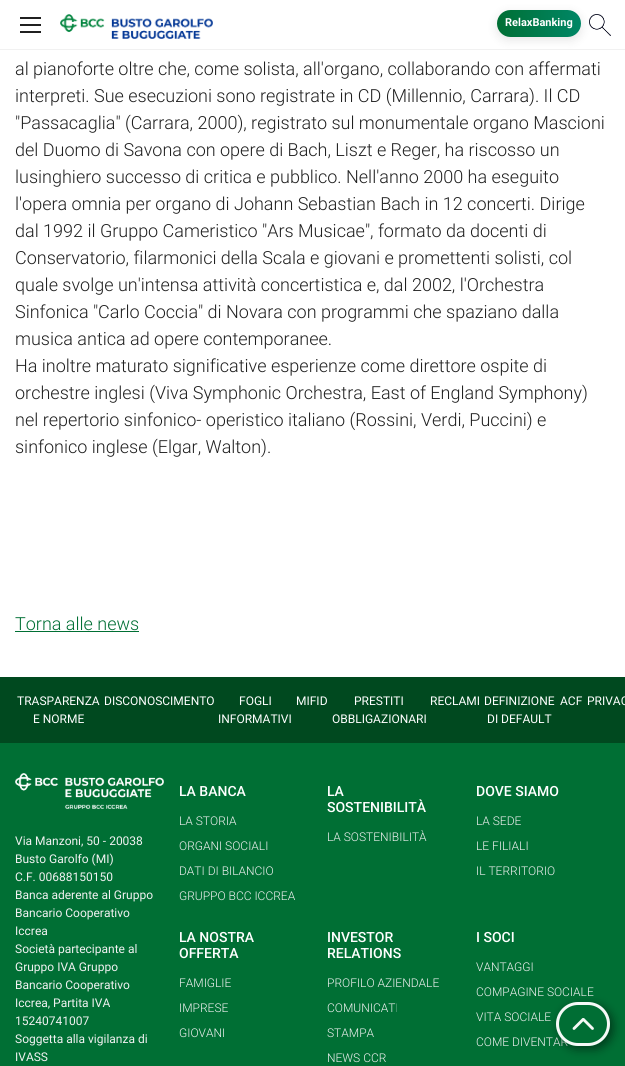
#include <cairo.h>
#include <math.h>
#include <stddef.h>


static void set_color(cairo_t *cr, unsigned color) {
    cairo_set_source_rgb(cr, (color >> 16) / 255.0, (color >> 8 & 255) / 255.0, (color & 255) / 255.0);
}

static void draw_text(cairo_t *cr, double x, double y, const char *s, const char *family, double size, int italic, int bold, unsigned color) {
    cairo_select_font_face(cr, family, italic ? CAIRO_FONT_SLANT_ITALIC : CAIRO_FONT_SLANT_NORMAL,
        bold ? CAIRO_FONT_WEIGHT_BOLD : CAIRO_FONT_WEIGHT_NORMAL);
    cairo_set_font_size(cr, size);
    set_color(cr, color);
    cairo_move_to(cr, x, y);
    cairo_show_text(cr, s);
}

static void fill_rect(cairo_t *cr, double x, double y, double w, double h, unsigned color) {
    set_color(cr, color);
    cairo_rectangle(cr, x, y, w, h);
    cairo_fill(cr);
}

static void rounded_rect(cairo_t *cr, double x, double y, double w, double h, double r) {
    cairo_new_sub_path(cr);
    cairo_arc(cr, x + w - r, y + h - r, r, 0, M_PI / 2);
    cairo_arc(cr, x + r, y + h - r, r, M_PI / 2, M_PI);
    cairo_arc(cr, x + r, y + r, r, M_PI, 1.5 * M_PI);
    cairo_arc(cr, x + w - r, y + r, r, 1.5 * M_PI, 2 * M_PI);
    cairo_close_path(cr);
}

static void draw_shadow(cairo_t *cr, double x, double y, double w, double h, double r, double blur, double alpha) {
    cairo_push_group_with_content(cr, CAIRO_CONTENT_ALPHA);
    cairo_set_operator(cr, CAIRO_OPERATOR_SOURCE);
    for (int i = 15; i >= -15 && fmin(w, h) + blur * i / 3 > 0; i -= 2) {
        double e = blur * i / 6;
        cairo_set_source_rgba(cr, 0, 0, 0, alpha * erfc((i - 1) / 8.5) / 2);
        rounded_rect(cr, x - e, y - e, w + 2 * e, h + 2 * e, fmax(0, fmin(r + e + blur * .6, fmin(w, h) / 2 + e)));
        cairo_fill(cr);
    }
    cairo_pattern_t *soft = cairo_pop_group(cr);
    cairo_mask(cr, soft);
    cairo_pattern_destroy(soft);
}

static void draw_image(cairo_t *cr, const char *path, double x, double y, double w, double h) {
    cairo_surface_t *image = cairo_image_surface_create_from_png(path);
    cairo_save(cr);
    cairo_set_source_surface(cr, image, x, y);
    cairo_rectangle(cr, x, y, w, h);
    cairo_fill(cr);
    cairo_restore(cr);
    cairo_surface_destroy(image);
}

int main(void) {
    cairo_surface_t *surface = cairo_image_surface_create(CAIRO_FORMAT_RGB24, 625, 1066);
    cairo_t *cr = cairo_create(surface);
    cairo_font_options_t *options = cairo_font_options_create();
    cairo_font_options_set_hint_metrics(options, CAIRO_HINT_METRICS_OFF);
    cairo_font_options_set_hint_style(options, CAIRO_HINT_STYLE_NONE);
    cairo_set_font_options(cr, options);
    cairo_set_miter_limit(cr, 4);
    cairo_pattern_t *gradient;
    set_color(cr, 0xFFFFFF);
    cairo_paint(cr);
    fill_rect(cr, 0, 49, 625, 1, 0xF1F1F1);
    fill_rect(cr, 20, 24, 21, 2, 0x202020);
    fill_rect(cr, 20, 17, 21, 2, 0x202020);
    fill_rect(cr, 20, 31, 21, 2, 0x202020);
    draw_image(cr, "assets/img1.png", 60, 14, 153, 25);
    set_color(cr, 0x000000);
    draw_shadow(cr, 497, 13, 84, 27, 13.5, 5, 0.1);
    gradient = cairo_pattern_create_linear(581, 23, 497, 24);
    cairo_pattern_add_color_stop_rgba(gradient, 0, 0, 0.529, 0.4, 1);
    cairo_pattern_add_color_stop_rgba(gradient, 1, 0, 0.435, 0.204, 1);
    cairo_set_source(cr, gradient);
    cairo_pattern_destroy(gradient);
    rounded_rect(cr, 497, 10, 84, 27, 13.5);
    cairo_fill(cr);
    draw_text(cr, 505, 26, "RelaxBanking", "Roboto", 11, 0, 1, 0xFFFFFF);
    draw_image(cr, "assets/img2.png", 589, 14, 22, 22);
    draw_text(cr, 15, 75, "al pianoforte oltre che, come solista, all'organo, collaborando con affermati", "Roboto Light", 18, 0, 0, 0x202020);
    draw_text(cr, 15, 102, "interpreti. Sue esecuzioni sono registrate in CD (Millennio, Carrara). Il CD", "Roboto Light", 18, 0, 0, 0x202020);
    draw_text(cr, 15, 129, "\"Passacaglia\" (Carrara, 2000), registrato sul monumentale organo Mascioni", "Roboto Light", 18, 0, 0, 0x202020);
    draw_text(cr, 15, 156, "del Duomo di Savona con opere di Bach, Liszt e Reger, ha riscosso un", "Roboto Light", 18, 0, 0, 0x202020);
    draw_text(cr, 15, 183, "lusinghiero successo di critica e pubblico. Nell'anno 2000 ha eseguito", "Roboto Light", 18, 0, 0, 0x202020);
    draw_text(cr, 15, 210, "l'opera omnia per organo di Johann Sebastian Bach in 12 concerti. Dirige", "Roboto Light", 18, 0, 0, 0x202020);
    draw_text(cr, 15, 237, "dal 1992 il Gruppo Cameristico \"Ars Musicae\", formato da docenti di", "Roboto Light", 18, 0, 0, 0x202020);
    draw_text(cr, 15, 264, "Conservatorio, filarmonici della Scala e giovani e promettenti solisti, col", "Roboto Light", 18, 0, 0, 0x202020);
    draw_text(cr, 15, 291, "quale svolge un'intensa attività concertistica e, dal 2002, l'Orchestra", "Roboto Light", 18, 0, 0, 0x202020);
    draw_text(cr, 15, 318, "Sinfonica \"Carlo Coccia\" di Novara con programmi che spaziano dalla", "Roboto Light", 18, 0, 0, 0x202020);
    draw_text(cr, 15, 345, "musica antica ad opere contemporanee.", "Roboto Light", 18, 0, 0, 0x202020);
    draw_text(cr, 15, 372, "Ha inoltre maturato significative esperienze come direttore ospite di", "Roboto Light", 18, 0, 0, 0x202020);
    draw_text(cr, 15, 399, "orchestre inglesi (Viva Symphonic Orchestra, East of England Symphony)", "Roboto Light", 18, 0, 0, 0x202020);
    draw_text(cr, 15, 426, "nel repertorio sinfonico- operistico italiano (Rossini, Verdi, Puccini) e", "Roboto Light", 18, 0, 0, 0x202020);
    draw_text(cr, 15, 453, "sinfonico inglese (Elgar, Walton).", "Roboto Light", 18, 0, 0, 0x202020);
    draw_text(cr, 15, 630, "Torna alle news", "Roboto Light", 18, 0, 0, 0x006F34);
    fill_rect(cr, 15, 631, 124, 1, 0x006F34);
    fill_rect(cr, 0, 677, 625, 66, 0x00491F);
    draw_text(cr, 17, 705, "TRASPARENZA", "Roboto", 12, 0, 0, 0xFFFFFF);
    draw_text(cr, 33, 723, "E NORME", "Roboto", 12, 0, 0, 0xFFFFFF);
    draw_text(cr, 104, 705, "DISCONOSCIMENTO", "Roboto", 12, 0, 0, 0xFFFFFF);
    draw_text(cr, 239, 705, "FOGLI", "Roboto", 12, 0, 0, 0xFFFFFF);
    draw_text(cr, 218, 723, "INFORMATIVI", "Roboto", 12, 0, 0, 0xFFFFFF);
    draw_text(cr, 296, 705, "MIFID", "Roboto", 12, 0, 0, 0xFFFFFF);
    draw_text(cr, 354, 705, "PRESTITI", "Roboto", 12, 0, 0, 0xFFFFFF);
    draw_text(cr, 332, 723, "OBBLIGAZIONARI", "Roboto", 12, 0, 0, 0xFFFFFF);
    draw_text(cr, 430, 705, "RECLAMI", "Roboto", 12, 0, 0, 0xFFFFFF);
    draw_text(cr, 484, 705, "DEFINIZIONE", "Roboto", 12, 0, 0, 0xFFFFFF);
    draw_text(cr, 487, 723, "DI DEFAULT", "Roboto", 12, 0, 0, 0xFFFFFF);
    draw_text(cr, 560, 705, "ACF", "Roboto", 12, 0, 0, 0xFFFFFF);
    draw_text(cr, 587, 705, "PRIVAC", "Roboto", 12, 0, 0, 0xFFFFFF);
    fill_rect(cr, 0, 743, 625, 323, 0x006F34);
    draw_image(cr, "assets/img3.png", 15, 773, 149, 36);
    draw_text(cr, 15, 845, "Via Manzoni, 50 - 20038", "Roboto", 12, 0, 0, 0xF1F1F1);
    draw_text(cr, 15, 863, "Busto Garolfo (MI)", "Roboto", 12, 0, 0, 0xF1F1F1);
    draw_text(cr, 15, 881, "C.F. 00688150150", "Roboto", 12, 0, 0, 0xF1F1F1);
    draw_text(cr, 15, 899, "Banca aderente al Gruppo", "Roboto", 12, 0, 0, 0xF1F1F1);
    draw_text(cr, 15, 917, "Bancario Cooperativo", "Roboto", 12, 0, 0, 0xF1F1F1);
    draw_text(cr, 15, 935, "Iccrea", "Roboto", 12, 0, 0, 0xF1F1F1);
    draw_text(cr, 15, 953, "Società partecipante al", "Roboto", 12, 0, 0, 0xF1F1F1);
    draw_text(cr, 15, 971, "Gruppo IVA Gruppo", "Roboto", 12, 0, 0, 0xF1F1F1);
    draw_text(cr, 15, 989, "Bancario Cooperativo", "Roboto", 12, 0, 0, 0xF1F1F1);
    draw_text(cr, 15, 1007, "Iccrea, Partita IVA", "Roboto", 12, 0, 0, 0xF1F1F1);
    draw_text(cr, 15, 1025, "15240741007", "Roboto", 12, 0, 0, 0xF1F1F1);
    draw_text(cr, 15, 1043, "Soggetta alla vigilanza di", "Roboto", 12, 0, 0, 0xF1F1F1);
    draw_text(cr, 15, 1061, "IVASS", "Roboto", 12, 0, 0, 0xF1F1F1);
    draw_text(cr, 179, 796, "LA BANCA", "Roboto Medium", 14, 0, 0, 0xFFFFFF);
    draw_text(cr, 179, 825, "LA STORIA", "Roboto Light", 12, 0, 0, 0xF1F1F1);
    draw_text(cr, 179, 850, "ORGANI SOCIALI", "Roboto Light", 12, 0, 0, 0xF1F1F1);
    draw_text(cr, 179, 875, "DATI DI BILANCIO", "Roboto Light", 12, 0, 0, 0xF1F1F1);
    draw_text(cr, 179, 900, "GRUPPO BCC ICCREA", "Roboto Light", 12, 0, 0, 0xF1F1F1);
    draw_text(cr, 327, 796, "LA", "Roboto Medium", 14, 0, 0, 0xFFFFFF);
    draw_text(cr, 327, 812, "SOSTENIBILITÀ", "Roboto Medium", 14, 0, 0, 0xFFFFFF);
    draw_text(cr, 327, 841, "LA SOSTENIBILITÀ", "Roboto Light", 12, 0, 0, 0xF1F1F1);
    draw_text(cr, 476, 796, "DOVE SIAMO", "Roboto Medium", 14, 0, 0, 0xFFFFFF);
    draw_text(cr, 476, 825, "LA SEDE", "Roboto Light", 12, 0, 0, 0xF1F1F1);
    draw_text(cr, 476, 850, "LE FILIALI", "Roboto Light", 12, 0, 0, 0xF1F1F1);
    draw_text(cr, 476, 875, "IL TERRITORIO", "Roboto Light", 12, 0, 0, 0xF1F1F1);
    draw_text(cr, 179, 942, "LA NOSTRA", "Roboto Medium", 14, 0, 0, 0xFFFFFF);
    draw_text(cr, 179, 958, "OFFERTA", "Roboto Medium", 14, 0, 0, 0xFFFFFF);
    draw_text(cr, 179, 987, "FAMIGLIE", "Roboto Light", 12, 0, 0, 0xF1F1F1);
    draw_text(cr, 179, 1012, "IMPRESE", "Roboto Light", 12, 0, 0, 0xF1F1F1);
    draw_text(cr, 179, 1037, "GIOVANI", "Roboto Light", 12, 0, 0, 0xF1F1F1);
    draw_text(cr, 327, 942, "INVESTOR", "Roboto Medium", 14, 0, 0, 0xFFFFFF);
    draw_text(cr, 327, 958, "RELATIONS", "Roboto Medium", 14, 0, 0, 0xFFFFFF);
    draw_text(cr, 327, 987, "PROFILO AZIENDALE", "Roboto Light", 12, 0, 0, 0xF1F1F1);
    draw_text(cr, 327, 1012, "COMUNICATI", "Roboto Light", 12, 0, 0, 0xF1F1F1);
    draw_text(cr, 327, 1037, "STAMPA", "Roboto Light", 12, 0, 0, 0xF1F1F1);
    draw_text(cr, 327, 1062, "NEWS CCR", "Roboto Light", 12, 0, 0, 0xF1F1F1);
    draw_text(cr, 476, 942, "I SOCI", "Roboto Medium", 14, 0, 0, 0xFFFFFF);
    draw_text(cr, 476, 971, "VANTAGGI", "Roboto Light", 12, 0, 0, 0xF1F1F1);
    draw_text(cr, 476, 996, "COMPAGINE SOCIALE", "Roboto Light", 12, 0, 0, 0xF1F1F1);
    draw_text(cr, 476, 1021, "VITA SOCIALE", "Roboto Light", 12, 0, 0, 0xF1F1F1);
    draw_text(cr, 476, 1046, "COME DIVENTAR", "Roboto Light", 12, 0, 0, 0xF1F1F1);
    cairo_save(cr);
    cairo_set_fill_rule(cr, CAIRO_FILL_RULE_EVEN_ODD);
    cairo_new_path(cr);
    cairo_move_to(cr, 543, 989);
    cairo_line_to(cr, 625, 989);
    cairo_line_to(cr, 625, 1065);
    cairo_line_to(cr, 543, 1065);
    cairo_close_path(cr);
    cairo_move_to(cr, 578, 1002);
    cairo_line_to(cr, 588, 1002);
    cairo_curve_to(cr, 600, 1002, 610, 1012, 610, 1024);
    cairo_curve_to(cr, 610, 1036, 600, 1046, 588, 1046);
    cairo_line_to(cr, 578, 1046);
    cairo_curve_to(cr, 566, 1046, 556, 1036, 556, 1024);
    cairo_curve_to(cr, 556, 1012, 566, 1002, 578, 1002);
    cairo_close_path(cr);
    cairo_clip(cr);
    set_color(cr, 0x000000);
    draw_shadow(cr, 559, 1005, 54, 44, 22, 5, 0.48);
    cairo_restore(cr);
    cairo_set_source_rgba(cr, 0, 0.435, 0.204, 0.96);
    rounded_rect(cr, 556, 1002, 54, 44, 22);
    cairo_fill(cr);
    rounded_rect(cr, 557.5, 1003.5, 51, 41, 20.5);
    cairo_set_source_rgba(cr, 1, 1, 1, 0.96);
    cairo_set_line_width(cr, 3);
    cairo_stroke(cr);
    set_color(cr, 0xF6FAF7);
    cairo_new_path(cr);
    cairo_move_to(cr, 584, 1018.5);
    cairo_curve_to(cr, 584.5, 1019, 584.5, 1020, 584, 1020.5);
    cairo_line_to(cr, 575, 1029.5);
    cairo_curve_to(cr, 574.5, 1030, 573.5, 1030, 573, 1029.5);
    cairo_curve_to(cr, 572.5, 1029, 572.5, 1028, 573, 1027.5);
    cairo_line_to(cr, 582, 1018.5);
    cairo_curve_to(cr, 582.5, 1018, 583.5, 1018, 584, 1018.5);
    cairo_close_path(cr);
    cairo_fill(cr);
    cairo_new_path(cr);
    cairo_move_to(cr, 582.5, 1018.5);
    cairo_curve_to(cr, 583, 1018, 584, 1018, 584.5, 1018.5);
    cairo_line_to(cr, 593.5, 1027.5);
    cairo_curve_to(cr, 594, 1028, 594, 1029, 593.5, 1029.5);
    cairo_curve_to(cr, 593, 1030, 592, 1030, 591.5, 1029.5);
    cairo_line_to(cr, 582.5, 1020.5);
    cairo_curve_to(cr, 582, 1020, 582, 1019, 582.5, 1018.5);
    cairo_close_path(cr);
    cairo_fill(cr);
    cairo_surface_write_to_png(surface, "output.png");
    cairo_font_options_destroy(options);
    cairo_destroy(cr);
    cairo_surface_destroy(surface);
    return 0;
}
